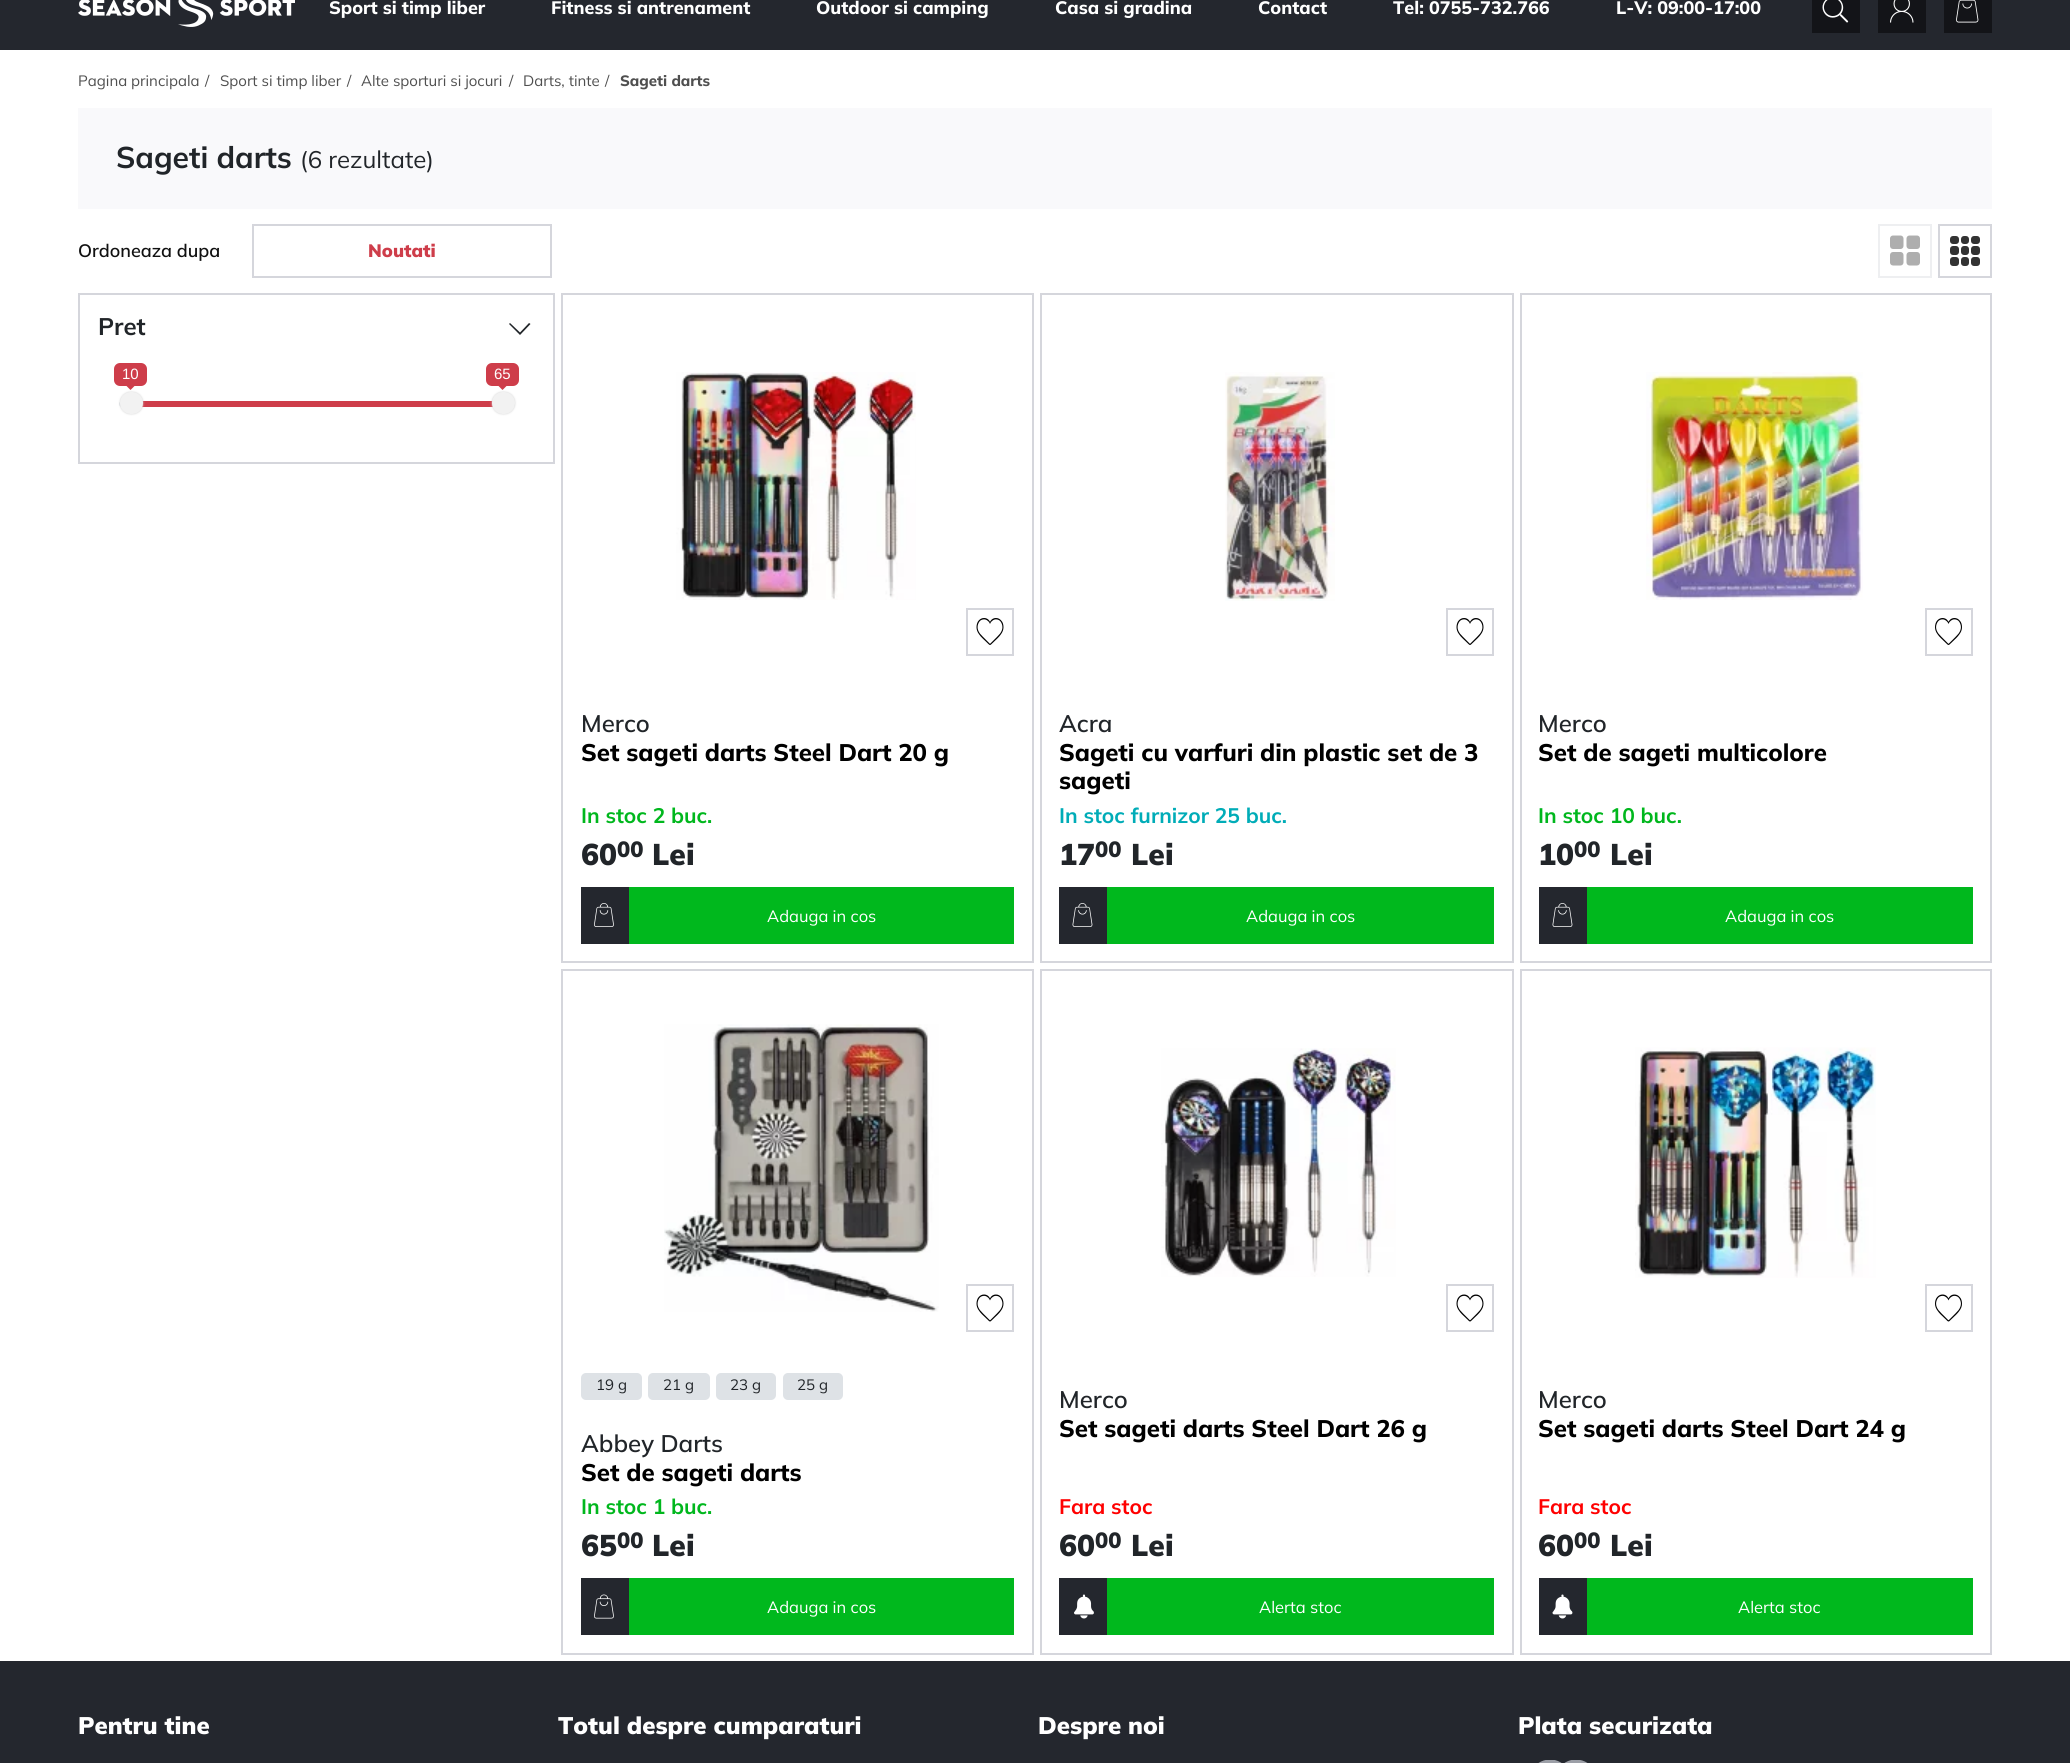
#include <cairo.h>
#include <math.h>
#include <stddef.h>


static void set_color(cairo_t *cr, unsigned color) {
    cairo_set_source_rgb(cr, (color >> 16) / 255.0, (color >> 8 & 255) / 255.0, (color & 255) / 255.0);
}

static void draw_text(cairo_t *cr, double x, double y, const char *s, const char *family, double size, int italic, int bold, unsigned color) {
    cairo_select_font_face(cr, family, italic ? CAIRO_FONT_SLANT_ITALIC : CAIRO_FONT_SLANT_NORMAL,
        bold ? CAIRO_FONT_WEIGHT_BOLD : CAIRO_FONT_WEIGHT_NORMAL);
    cairo_set_font_size(cr, size);
    set_color(cr, color);
    cairo_move_to(cr, x, y);
    cairo_show_text(cr, s);
}

static void fill_rect(cairo_t *cr, double x, double y, double w, double h, unsigned color) {
    set_color(cr, color);
    cairo_rectangle(cr, x, y, w, h);
    cairo_fill(cr);
}

static void rounded_rect(cairo_t *cr, double x, double y, double w, double h, double r) {
    cairo_new_sub_path(cr);
    cairo_arc(cr, x + w - r, y + h - r, r, 0, M_PI / 2);
    cairo_arc(cr, x + r, y + h - r, r, M_PI / 2, M_PI);
    cairo_arc(cr, x + r, y + r, r, M_PI, 1.5 * M_PI);
    cairo_arc(cr, x + w - r, y + r, r, 1.5 * M_PI, 2 * M_PI);
    cairo_close_path(cr);
}

static void draw_shadow(cairo_t *cr, double x, double y, double w, double h, double r, double blur, double alpha) {
    cairo_push_group_with_content(cr, CAIRO_CONTENT_ALPHA);
    cairo_set_operator(cr, CAIRO_OPERATOR_SOURCE);
    for (int i = 15; i >= -15 && fmin(w, h) + blur * i / 3 > 0; i -= 2) {
        double e = blur * i / 6;
        cairo_set_source_rgba(cr, 0, 0, 0, alpha * erfc((i - 1) / 8.5) / 2);
        rounded_rect(cr, x - e, y - e, w + 2 * e, h + 2 * e, fmax(0, fmin(r + e + blur * .6, fmin(w, h) / 2 + e)));
        cairo_fill(cr);
    }
    cairo_pattern_t *soft = cairo_pop_group(cr);
    cairo_mask(cr, soft);
    cairo_pattern_destroy(soft);
}

static void draw_image(cairo_t *cr, const char *path, double x, double y, double w, double h) {
    cairo_surface_t *image = cairo_image_surface_create_from_png(path);
    cairo_save(cr);
    cairo_set_source_surface(cr, image, x, y);
    cairo_rectangle(cr, x, y, w, h);
    cairo_fill(cr);
    cairo_restore(cr);
    cairo_surface_destroy(image);
}

int main(void) {
    cairo_surface_t *surface = cairo_image_surface_create(CAIRO_FORMAT_RGB24, 2070, 1763);
    cairo_t *cr = cairo_create(surface);
    cairo_font_options_t *options = cairo_font_options_create();
    cairo_font_options_set_hint_metrics(options, CAIRO_HINT_METRICS_OFF);
    cairo_font_options_set_hint_style(options, CAIRO_HINT_STYLE_NONE);
    cairo_set_font_options(cr, options);
    cairo_set_miter_limit(cr, 4);
    set_color(cr, 0xFFFFFF);
    cairo_paint(cr);
    fill_rect(cr, 0, 0, 2070, 50, 0x24272E);
    draw_image(cr, "assets/img1.png", 78, 0, 217, 27);
    draw_text(cr, 329, 14, "Sport si timp liber", "Mulish ExtraBold", 18, 0, 0, 0xFFFFFF);
    draw_text(cr, 551, 14, "Fitness si antrenament", "Mulish ExtraBold", 18, 0, 0, 0xFFFFFF);
    draw_text(cr, 816, 14, "Outdoor si camping", "Mulish ExtraBold", 18, 0, 0, 0xFFFFFF);
    draw_text(cr, 1055, 14, "Casa si gradina", "Mulish ExtraBold", 18, 0, 0, 0xFFFFFF);
    draw_text(cr, 1258, 14, "Contact", "Mulish ExtraBold", 18, 0, 0, 0xFFFFFF);
    draw_text(cr, 1393, 14, "Tel: 0755-732.766", "Mulish ExtraBold", 18, 0, 0, 0xFFFFFF);
    draw_text(cr, 1616, 14, "L-V: 09:00-17:00", "Mulish ExtraBold", 18, 0, 0, 0xFFFFFF);
    fill_rect(cr, 1812, 0, 48, 33, 0x131418);
    draw_image(cr, "assets/img2.png", 1822, 0, 27, 23);
    fill_rect(cr, 1878, 0, 48, 33, 0x131418);
    draw_image(cr, "assets/img3.png", 1890, 0, 24, 23);
    fill_rect(cr, 1944, 0, 48, 33, 0x131418);
    draw_image(cr, "assets/img4.png", 1956, 0, 23, 23);
    draw_text(cr, 78, 86, "Pagina principala", "Mulish", 15, 0, 0, 0x4F4F4F);
    draw_text(cr, 205, 86, "/", "Mulish", 15, 0, 0, 0x4F4F4F);
    draw_text(cr, 220, 86, "Sport si timp liber", "Mulish", 15, 0, 0, 0x4F4F4F);
    draw_text(cr, 347, 86, "/", "Mulish", 15, 0, 0, 0x4F4F4F);
    draw_text(cr, 361, 86, "Alte sporturi si jocuri", "Mulish", 15, 0, 0, 0x4F4F4F);
    draw_text(cr, 509, 86, "/", "Mulish", 15, 0, 0, 0x4F4F4F);
    draw_text(cr, 523, 86, "Darts, tinte", "Mulish", 15, 0, 0, 0x4F4F4F);
    draw_text(cr, 605, 86, "/", "Mulish", 15, 0, 0, 0x4F4F4F);
    draw_text(cr, 620, 86, "Sageti darts", "Mulish ExtraBold", 15, 0, 0, 0x4F4F4F);
    fill_rect(cr, 78, 108, 1914, 101, 0xF9F9FB);
    draw_text(cr, 116, 168, "Sageti darts", "Mulish", 30, 0, 1, 0x212529);
    draw_text(cr, 300, 168, "(6 rezultate)", "Mulish", 24, 0, 0, 0x212529);
    draw_text(cr, 78, 257, "Ordoneaza dupa", "Mulish SemiBold", 18, 0, 0, 0x111111);
    cairo_rectangle(cr, 253, 225, 298, 52);
    set_color(cr, 0xD5D6DC);
    cairo_stroke(cr);
    draw_text(cr, 368, 257, "Noutati", "Mulish Black", 18, 0, 0, 0xCE3D4A);
    draw_image(cr, "assets/img5.png", 1890, 235, 30, 31);
    cairo_rectangle(cr, 1879, 225, 52, 52);
    set_color(cr, 0xEEEFF1);
    cairo_stroke(cr);
    set_color(cr, 0x333333);
    rounded_rect(cr, 1950, 236, 9, 8, 3);
    cairo_fill(cr);
    rounded_rect(cr, 1961, 236, 8, 8, 3);
    cairo_fill(cr);
    rounded_rect(cr, 1950, 246, 9, 9, 3);
    cairo_fill(cr);
    rounded_rect(cr, 1961, 246, 8, 9, 3);
    cairo_fill(cr);
    rounded_rect(cr, 1971, 236, 9, 8, 3);
    cairo_fill(cr);
    rounded_rect(cr, 1971, 246, 9, 9, 3);
    cairo_fill(cr);
    rounded_rect(cr, 1950, 257, 9, 9, 3);
    cairo_fill(cr);
    rounded_rect(cr, 1961, 257, 8, 9, 3);
    cairo_fill(cr);
    rounded_rect(cr, 1971, 257, 9, 9, 3);
    cairo_fill(cr);
    cairo_rectangle(cr, 1939, 225, 52, 52);
    set_color(cr, 0xD5D6DC);
    cairo_stroke(cr);
    cairo_rectangle(cr, 79, 294, 475, 169);
    cairo_stroke(cr);
    draw_text(cr, 98, 335, "Pret", "Mulish", 24, 0, 1, 0x212529);
    cairo_new_path(cr);
    cairo_move_to(cr, 509, 324);
    cairo_line_to(cr, 510, 323);
    cairo_line_to(cr, 520, 332.5);
    cairo_line_to(cr, 529, 323);
    cairo_line_to(cr, 530.5, 324);
    cairo_line_to(cr, 520, 335);
    cairo_close_path(cr);
    cairo_fill(cr);
    set_color(cr, 0xCE3D4A);
    rounded_rect(cr, 114, 363, 33, 23, 6);
    cairo_fill(cr);
    draw_text(cr, 122, 379, "10", "Liberation Sans", 15, 0, 0, 0xFFFFFF);
    set_color(cr, 0xCE3D4A);
    cairo_new_path(cr);
    cairo_move_to(cr, 126, 385.5);
    cairo_line_to(cr, 135, 385.5);
    cairo_line_to(cr, 130.5, 390);
    cairo_close_path(cr);
    cairo_fill(cr);
    rounded_rect(cr, 486, 363, 33, 23, 6);
    cairo_fill(cr);
    draw_text(cr, 494, 379, "65", "Liberation Sans", 15, 0, 0, 0xFFFFFF);
    set_color(cr, 0xCE3D4A);
    cairo_new_path(cr);
    cairo_move_to(cr, 498, 385.5);
    cairo_line_to(cr, 507, 385.5);
    cairo_line_to(cr, 502.5, 390);
    cairo_close_path(cr);
    cairo_fill(cr);
    set_color(cr, 0xE1E4E9);
    rounded_rect(cr, 119, 401, 396, 6, 3);
    cairo_fill(cr);
    fill_rect(cr, 142, 401, 351, 6, 0xCE3D4A);
    set_color(cr, 0xD3D3D3);
    draw_shadow(cr, 120, 392, 23, 22, 11, 1, 1);
    set_color(cr, 0xF2F2F2);
    rounded_rect(cr, 120, 392, 23, 22, 11);
    cairo_fill(cr);
    set_color(cr, 0xD3D3D3);
    draw_shadow(cr, 492, 392, 23, 22, 11, 1, 1);
    set_color(cr, 0xF2F2F2);
    rounded_rect(cr, 492, 392, 23, 22, 11);
    cairo_fill(cr);
    cairo_rectangle(cr, 562, 294, 471, 668);
    set_color(cr, 0xD5D6DC);
    cairo_stroke(cr);
    draw_image(cr, "assets/img6.png", 676, 372, 240, 228);
    cairo_rectangle(cr, 967, 609, 46, 46);
    cairo_stroke(cr);
    draw_image(cr, "assets/img7.png", 976, 618, 28, 27);
    draw_text(cr, 581, 732, "Merco", "Mulish SemiBold", 24, 0, 0, 0x212529);
    draw_text(cr, 581, 761, "Set sageti darts Steel Dart 20 g", "Mulish ExtraBold", 24, 0, 0, 0x000000);
    draw_text(cr, 581, 823, "In stoc 2 buc.", "Mulish", 21, 0, 1, 0x00B71D);
    draw_text(cr, 581, 865, "60", "Mulish Black", 30, 0, 0, 0x212529);
    draw_text(cr, 617, 857, "00", "Mulish Black", 22, 0, 0, 0x212529);
    draw_text(cr, 652, 865, "Lei", "Mulish Black", 30, 0, 0, 0x212529);
    fill_rect(cr, 629, 887, 385, 57, 0x00B81D);
    fill_rect(cr, 581, 887, 48, 57, 0x24272E);
    draw_image(cr, "assets/img8.png", 594, 903, 20, 24);
    draw_text(cr, 767, 922, "Adauga in cos", "Mulish", 16.5, 0, 0, 0xFFFFFF);
    cairo_rectangle(cr, 1041, 294, 472, 668);
    set_color(cr, 0xD5D6DC);
    cairo_stroke(cr);
    draw_image(cr, "assets/img9.png", 1225, 372, 110, 229);
    cairo_rectangle(cr, 1447, 609, 46, 46);
    cairo_stroke(cr);
    draw_image(cr, "assets/img7.png", 1456, 618, 28, 27);
    draw_text(cr, 1059, 732, "Acra", "Mulish SemiBold", 24, 0, 0, 0x212529);
    draw_text(cr, 1059, 761, "Sageti cu varfuri din plastic set de 3", "Mulish ExtraBold", 24, 0, 0, 0x000000);
    draw_text(cr, 1059, 789, "sageti", "Mulish ExtraBold", 24, 0, 0, 0x000000);
    draw_text(cr, 1059, 823, "In stoc furnizor 25 buc.", "Mulish", 21, 0, 1, 0x00ACB7);
    draw_text(cr, 1059, 865, "17", "Mulish Black", 30, 0, 0, 0x212529);
    draw_text(cr, 1095, 857, "00", "Mulish Black", 22, 0, 0, 0x212529);
    draw_text(cr, 1131, 865, "Lei", "Mulish Black", 30, 0, 0, 0x212529);
    fill_rect(cr, 1107, 887, 387, 57, 0x00B81D);
    fill_rect(cr, 1059, 887, 48, 57, 0x24272E);
    draw_image(cr, "assets/img10.png", 1072, 903, 21, 24);
    draw_text(cr, 1246, 922, "Adauga in cos", "Mulish", 16.5, 0, 0, 0xFFFFFF);
    cairo_rectangle(cr, 1521, 294, 470, 668);
    set_color(cr, 0xD5D6DC);
    cairo_stroke(cr);
    draw_image(cr, "assets/img11.png", 1646, 372, 217, 228);
    cairo_rectangle(cr, 1926, 609, 46, 46);
    cairo_stroke(cr);
    draw_image(cr, "assets/img12.png", 1935, 618, 27, 27);
    draw_text(cr, 1538, 732, "Merco", "Mulish SemiBold", 24, 0, 0, 0x212529);
    draw_text(cr, 1538, 761, "Set de sageti multicolore", "Mulish ExtraBold", 24, 0, 0, 0x000000);
    draw_text(cr, 1538, 823, "In stoc 10 buc.", "Mulish", 21, 0, 1, 0x00B71D);
    draw_text(cr, 1538, 865, "10", "Mulish Black", 30, 0, 0, 0x212529);
    draw_text(cr, 1574, 857, "00", "Mulish Black", 22, 0, 0, 0x212529);
    draw_text(cr, 1610, 865, "Lei", "Mulish Black", 30, 0, 0, 0x212529);
    fill_rect(cr, 1587, 887, 386, 57, 0x00B81D);
    fill_rect(cr, 1539, 887, 48, 57, 0x24272E);
    draw_image(cr, "assets/img10.png", 1552, 903, 21, 24);
    draw_text(cr, 1725, 922, "Adauga in cos", "Mulish", 16.5, 0, 0, 0xFFFFFF);
    cairo_rectangle(cr, 562, 970, 471, 684);
    set_color(cr, 0xD5D6DC);
    cairo_stroke(cr);
    draw_image(cr, "assets/img13.png", 664, 1024, 275, 288);
    cairo_rectangle(cr, 967, 1285, 46, 46);
    cairo_stroke(cr);
    draw_image(cr, "assets/img14.png", 976, 1294, 28, 28);
    set_color(cr, 0xDEE2E6);
    rounded_rect(cr, 581, 1373, 61, 27, 5);
    cairo_fill(cr);
    draw_text(cr, 596, 1390, "19 g", "Mulish", 15, 0, 0, 0x212529);
    set_color(cr, 0xDEE2E6);
    rounded_rect(cr, 648, 1373, 62, 27, 5);
    cairo_fill(cr);
    draw_text(cr, 663, 1390, "21 g", "Mulish", 15, 0, 0, 0x212529);
    set_color(cr, 0xDEE2E6);
    rounded_rect(cr, 716, 1373, 60, 27, 5);
    cairo_fill(cr);
    draw_text(cr, 730, 1390, "23 g", "Mulish", 15, 0, 0, 0x212529);
    set_color(cr, 0xDEE2E6);
    rounded_rect(cr, 783, 1373, 60, 27, 5);
    cairo_fill(cr);
    draw_text(cr, 797, 1390, "25 g", "Mulish", 15, 0, 0, 0x212529);
    draw_text(cr, 581, 1452, "Abbey Darts", "Mulish SemiBold", 24, 0, 0, 0x212529);
    draw_text(cr, 581, 1481, "Set de sageti darts", "Mulish ExtraBold", 24, 0, 0, 0x000000);
    draw_text(cr, 581, 1514, "In stoc 1 buc.", "Mulish", 21, 0, 1, 0x00B71D);
    draw_text(cr, 581, 1556, "65", "Mulish Black", 30, 0, 0, 0x212529);
    draw_text(cr, 617, 1548, "00", "Mulish Black", 22, 0, 0, 0x212529);
    draw_text(cr, 652, 1556, "Lei", "Mulish Black", 30, 0, 0, 0x212529);
    fill_rect(cr, 629, 1578, 385, 57, 0x00B81D);
    fill_rect(cr, 581, 1578, 48, 57, 0x24272E);
    draw_image(cr, "assets/img15.png", 594, 1594, 20, 25);
    draw_text(cr, 767, 1613, "Adauga in cos", "Mulish", 16.5, 0, 0, 0xFFFFFF);
    cairo_rectangle(cr, 1041, 970, 472, 684);
    set_color(cr, 0xD5D6DC);
    cairo_stroke(cr);
    draw_image(cr, "assets/img16.png", 1161, 1048, 235, 229);
    cairo_rectangle(cr, 1447, 1285, 46, 46);
    cairo_stroke(cr);
    draw_image(cr, "assets/img14.png", 1456, 1294, 28, 28);
    draw_text(cr, 1059, 1408, "Merco", "Mulish SemiBold", 24, 0, 0, 0x212529);
    draw_text(cr, 1059, 1437, "Set sageti darts Steel Dart 26 g", "Mulish ExtraBold", 24, 0, 0, 0x000000);
    draw_text(cr, 1059, 1514, "Fara stoc", "Mulish", 21, 0, 1, 0xFF0000);
    draw_text(cr, 1059, 1556, "60", "Mulish Black", 30, 0, 0, 0x212529);
    draw_text(cr, 1095, 1548, "00", "Mulish Black", 22, 0, 0, 0x212529);
    draw_text(cr, 1131, 1556, "Lei", "Mulish Black", 30, 0, 0, 0x212529);
    fill_rect(cr, 1107, 1578, 387, 57, 0x00B81D);
    fill_rect(cr, 1059, 1578, 48, 57, 0x24272E);
    draw_image(cr, "assets/img17.png", 1074, 1594, 20, 25);
    draw_text(cr, 1259, 1613, "Alerta stoc", "Mulish", 16.5, 0, 0, 0xFFFFFF);
    cairo_rectangle(cr, 1521, 970, 470, 684);
    set_color(cr, 0xD5D6DC);
    cairo_stroke(cr);
    draw_image(cr, "assets/img18.png", 1635, 1047, 241, 231);
    cairo_rectangle(cr, 1926, 1285, 46, 46);
    cairo_stroke(cr);
    draw_image(cr, "assets/img19.png", 1935, 1294, 27, 28);
    draw_text(cr, 1538, 1408, "Merco", "Mulish SemiBold", 24, 0, 0, 0x212529);
    draw_text(cr, 1538, 1437, "Set sageti darts Steel Dart 24 g", "Mulish ExtraBold", 24, 0, 0, 0x000000);
    draw_text(cr, 1538, 1514, "Fara stoc", "Mulish", 21, 0, 1, 0xFF0000);
    draw_text(cr, 1538, 1556, "60", "Mulish Black", 30, 0, 0, 0x212529);
    draw_text(cr, 1574, 1548, "00", "Mulish Black", 22, 0, 0, 0x212529);
    draw_text(cr, 1610, 1556, "Lei", "Mulish Black", 30, 0, 0, 0x212529);
    fill_rect(cr, 1587, 1578, 386, 57, 0x00B81D);
    fill_rect(cr, 1539, 1578, 48, 57, 0x24272E);
    draw_image(cr, "assets/img20.png", 1552, 1594, 21, 25);
    draw_text(cr, 1738, 1613, "Alerta stoc", "Mulish", 16.5, 0, 0, 0xFFFFFF);
    fill_rect(cr, 0, 1661, 2070, 102, 0x24272E);
    draw_text(cr, 78, 1734, "Pentru tine", "Mulish Black", 24, 0, 0, 0xFFFFFF);
    draw_text(cr, 558, 1734, "Totul despre cumparaturi", "Mulish Black", 24, 0, 0, 0xFFFFFF);
    draw_text(cr, 1038, 1734, "Despre noi", "Mulish Black", 24, 0, 0, 0xFFFFFF);
    draw_text(cr, 1518, 1734, "Plata securizata", "Mulish Black", 24, 0, 0, 0xFFFFFF);
    draw_image(cr, "assets/img21.png", 1538, 1760, 50, 3);
    cairo_surface_write_to_png(surface, "output.png");
    cairo_font_options_destroy(options);
    cairo_destroy(cr);
    cairo_surface_destroy(surface);
    return 0;
}
